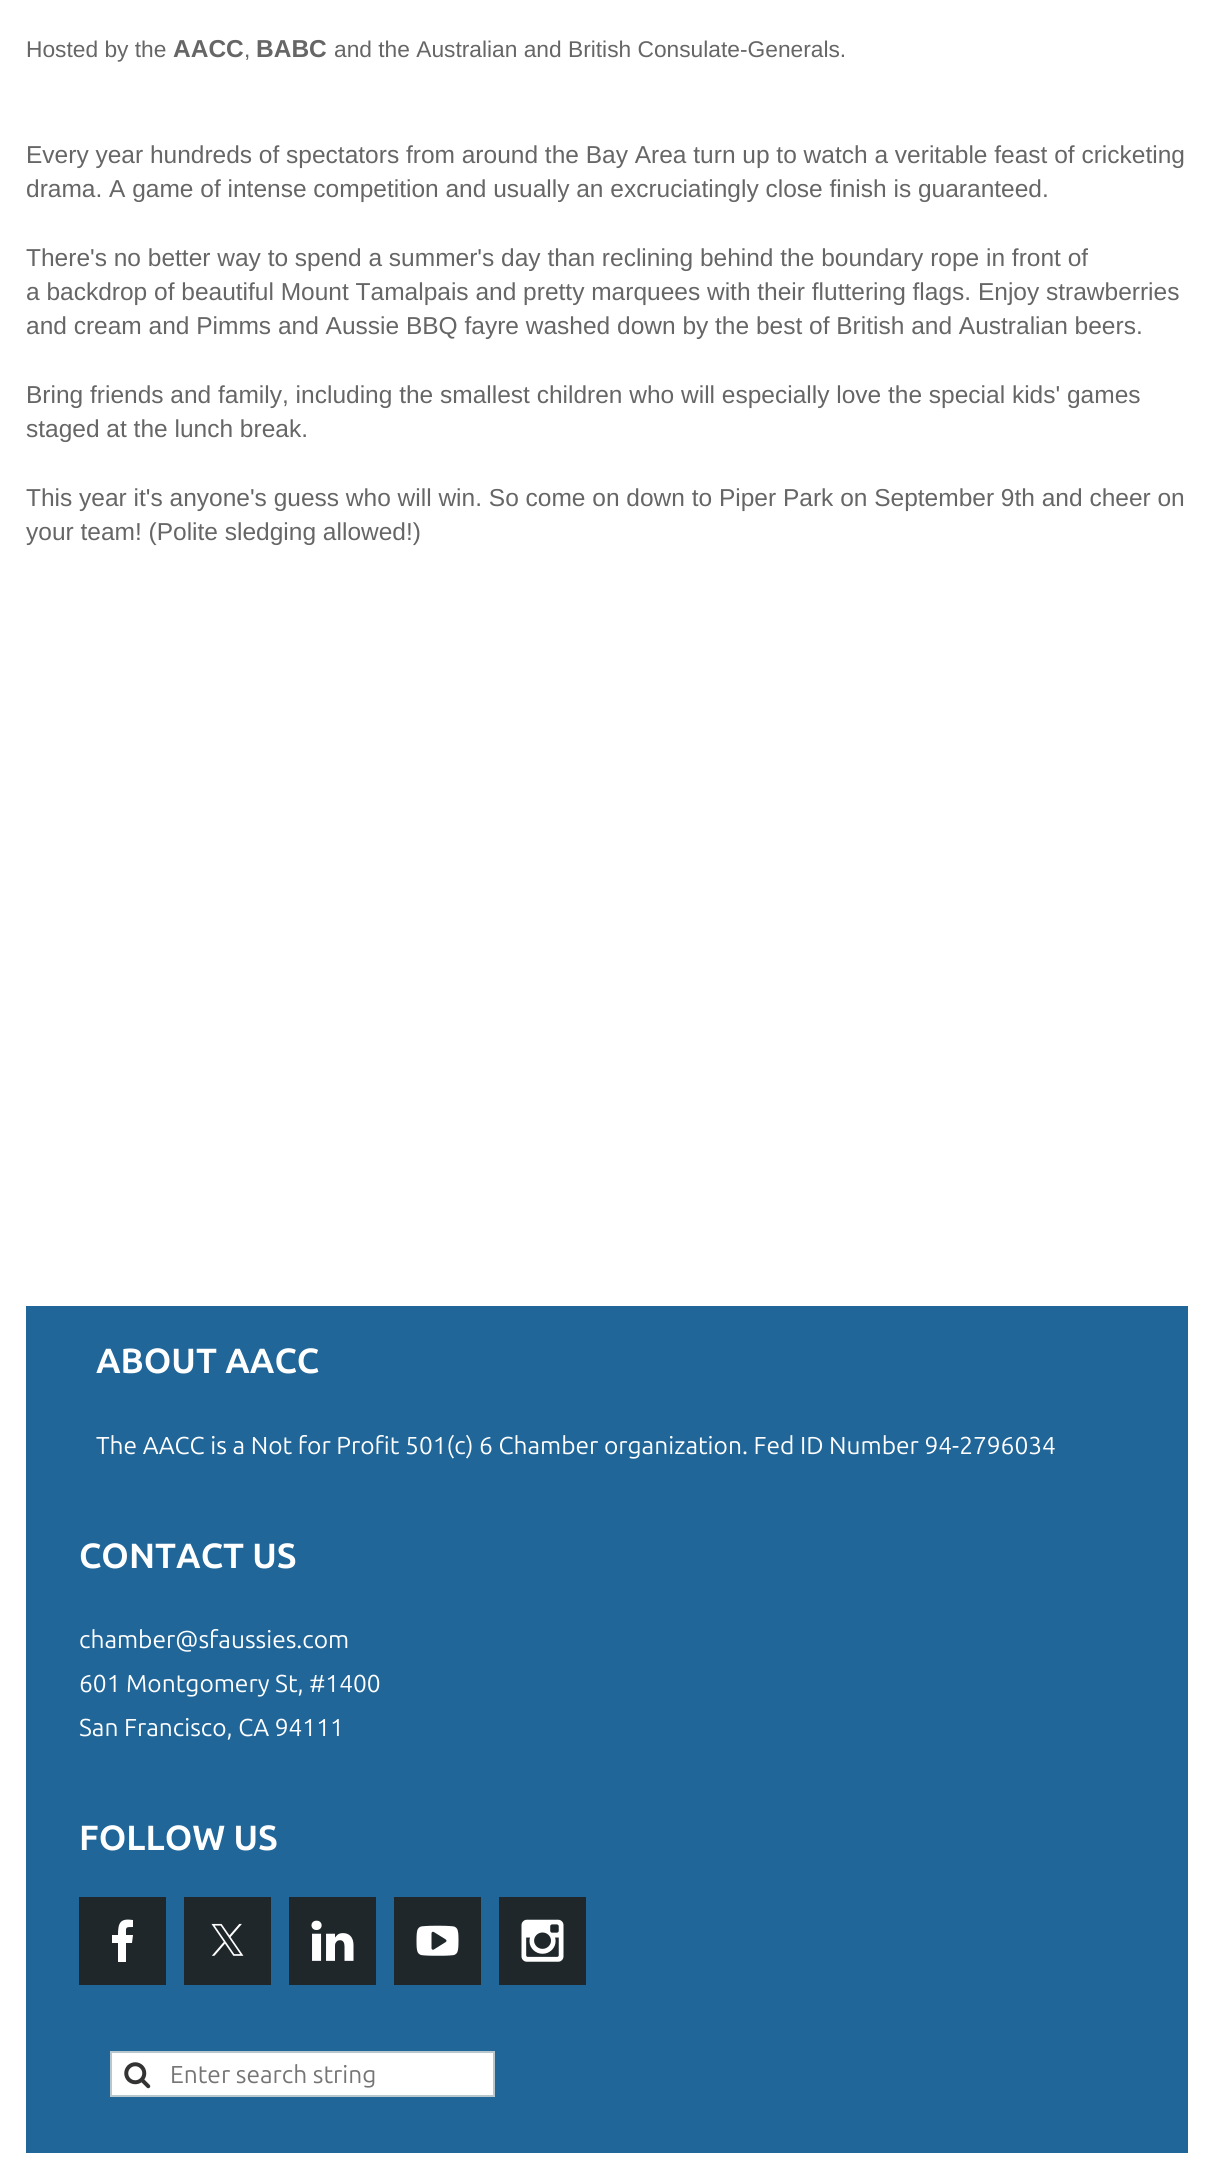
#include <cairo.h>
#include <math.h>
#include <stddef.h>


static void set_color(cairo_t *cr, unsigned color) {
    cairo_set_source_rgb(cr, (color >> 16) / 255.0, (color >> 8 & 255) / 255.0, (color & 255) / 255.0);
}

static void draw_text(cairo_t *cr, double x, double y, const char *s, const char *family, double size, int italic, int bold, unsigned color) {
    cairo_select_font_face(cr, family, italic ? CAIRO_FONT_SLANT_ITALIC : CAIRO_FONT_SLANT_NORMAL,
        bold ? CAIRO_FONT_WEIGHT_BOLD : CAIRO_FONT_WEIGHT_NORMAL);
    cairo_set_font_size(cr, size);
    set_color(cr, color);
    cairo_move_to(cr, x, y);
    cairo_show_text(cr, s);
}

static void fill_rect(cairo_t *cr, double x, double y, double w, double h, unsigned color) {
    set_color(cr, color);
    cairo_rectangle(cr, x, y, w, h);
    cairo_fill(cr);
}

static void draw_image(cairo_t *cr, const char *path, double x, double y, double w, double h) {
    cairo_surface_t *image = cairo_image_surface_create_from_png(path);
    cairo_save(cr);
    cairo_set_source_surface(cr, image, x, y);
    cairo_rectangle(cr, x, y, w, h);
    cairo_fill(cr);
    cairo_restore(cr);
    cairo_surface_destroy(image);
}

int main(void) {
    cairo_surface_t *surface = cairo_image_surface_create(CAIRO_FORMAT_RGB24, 1214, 2173);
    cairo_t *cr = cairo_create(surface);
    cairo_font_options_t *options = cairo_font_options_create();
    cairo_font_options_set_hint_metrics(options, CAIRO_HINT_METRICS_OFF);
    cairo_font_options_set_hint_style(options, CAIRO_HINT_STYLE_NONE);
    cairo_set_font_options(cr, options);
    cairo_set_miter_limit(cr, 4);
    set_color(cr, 0xFFFFFF);
    cairo_paint(cr);
    draw_text(cr, 26, 57, "Hosted by the", "Liberation Sans", 22.75, 0, 0, 0x666666);
    draw_text(cr, 173, 57, "AACC", "Liberation Sans", 24.5, 0, 1, 0x666666);
    draw_text(cr, 244, 57, ",", "Liberation Sans", 22.75, 0, 0, 0x666666);
    draw_text(cr, 256, 57, "BABC", "Liberation Sans", 24.5, 0, 1, 0x666666);
    draw_text(cr, 334, 57, "and the Australian and British Consulate-Generals.", "Liberation Sans", 22.75, 0, 0, 0x666666);
    draw_text(cr, 26, 163, "Every year hundreds of spectators from around the Bay Area turn up to watch a veritable feast of cricketing", "Liberation Sans", 24.5, 0, 0, 0x666666);
    draw_text(cr, 26, 197, "drama. A game of intense competition and usually an excruciatingly close finish is guaranteed.", "Liberation Sans", 24.5, 0, 0, 0x666666);
    draw_text(cr, 26, 266, "There's no better way to spend a summer's day than reclining behind the boundary rope in front of", "Liberation Sans", 24.5, 0, 0, 0x666666);
    draw_text(cr, 26, 300, "a backdrop of beautiful Mount Tamalpais and pretty marquees with their fluttering flags. Enjoy strawberries", "Liberation Sans", 24.5, 0, 0, 0x666666);
    draw_text(cr, 26, 334, "and cream and Pimms and Aussie BBQ fayre washed down by the best of British and Australian beers.", "Liberation Sans", 24.5, 0, 0, 0x666666);
    draw_text(cr, 26, 403, "Bring friends and family, including the smallest children who will especially love the special kids' games", "Liberation Sans", 24.5, 0, 0, 0x666666);
    draw_text(cr, 26, 437, "staged at the lunch break.", "Liberation Sans", 24.5, 0, 0, 0x666666);
    draw_text(cr, 26, 506, "This year it's anyone's guess who will win. So come on down to Piper Park on September 9th and cheer on", "Liberation Sans", 24.5, 0, 0, 0x666666);
    draw_text(cr, 26, 540, "your team! (Polite sledging allowed!)", "Liberation Sans", 24.5, 0, 0, 0x666666);
    fill_rect(cr, 26, 1306, 1162, 847, 0x206699);
    draw_text(cr, 96, 1373, "ABOUT AACC", "Ubuntu", 35, 0, 1, 0xFFFFFF);
    draw_text(cr, 96, 1454, "The AACC is a Not for Profit 501(c) 6 Chamber organization. Fed ID Number 94-2796034", "Ubuntu", 24.5, 0, 0, 0xFFFFFF);
    draw_text(cr, 79, 1568, "CONTACT US", "Ubuntu", 35, 0, 1, 0xFFFFFF);
    draw_text(cr, 79, 1648, "chamber@sfaussies.com", "Ubuntu", 24.5, 0, 0, 0xFFFFFF);
    draw_text(cr, 79, 1692, "601 Montgomery St, #1400", "Ubuntu", 24.5, 0, 0, 0xFFFFFF);
    draw_text(cr, 79, 1736, "San Francisco, CA 94111", "Ubuntu", 24.5, 0, 0, 0xFFFFFF);
    draw_text(cr, 79, 1850, "FOLLOW US", "Ubuntu", 35, 0, 1, 0xFFFFFF);
    fill_rect(cr, 79, 1897, 87, 88, 0x1F272B);
    set_color(cr, 0xFFFFFF);
    cairo_new_path(cr);
    cairo_move_to(cr, 133, 1927);
    cairo_curve_to(cr, 125, 1927, 126, 1927, 126, 1935);
    cairo_line_to(cr, 133, 1935);
    cairo_line_to(cr, 132, 1943);
    cairo_line_to(cr, 126, 1943);
    cairo_line_to(cr, 126, 1962);
    cairo_line_to(cr, 118, 1962);
    cairo_line_to(cr, 118, 1943);
    cairo_line_to(cr, 112, 1943);
    cairo_line_to(cr, 112, 1935);
    cairo_line_to(cr, 118, 1935);
    cairo_curve_to(cr, 118, 1923, 120, 1918, 133, 1920);
    cairo_close_path(cr);
    cairo_fill(cr);
    fill_rect(cr, 184, 1897, 87, 88, 0x1F272B);
    draw_image(cr, "assets/img1.png", 211, 1923, 33, 33);
    fill_rect(cr, 289, 1897, 87, 88, 0x1F272B);
    draw_image(cr, "assets/img2.png", 311, 1920, 43, 41);
    fill_rect(cr, 394, 1897, 87, 88, 0x1F272B);
    draw_image(cr, "assets/img3.png", 416, 1925, 43, 31);
    fill_rect(cr, 499, 1897, 87, 88, 0x1F272B);
    draw_image(cr, "assets/img4.png", 521, 1919, 43, 43);
    set_color(cr, 0xFFFFFF);
    cairo_rectangle(cr, 111, 2052, 383, 44);
    cairo_fill_preserve(cr);
    set_color(cr, 0xB8C6CD);
    cairo_stroke(cr);
    draw_image(cr, "assets/img5.png", 124, 2062, 27, 27);
    draw_text(cr, 170, 2083, "Enter search string", "Ubuntu", 24.5, 0, 0, 0x757575);
    cairo_surface_write_to_png(surface, "output.png");
    cairo_font_options_destroy(options);
    cairo_destroy(cr);
    cairo_surface_destroy(surface);
    return 0;
}
